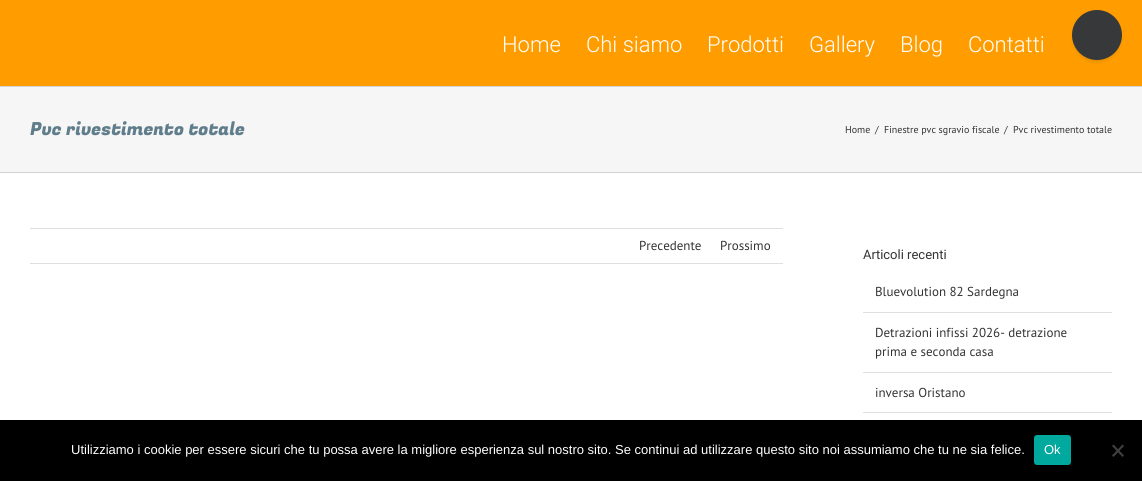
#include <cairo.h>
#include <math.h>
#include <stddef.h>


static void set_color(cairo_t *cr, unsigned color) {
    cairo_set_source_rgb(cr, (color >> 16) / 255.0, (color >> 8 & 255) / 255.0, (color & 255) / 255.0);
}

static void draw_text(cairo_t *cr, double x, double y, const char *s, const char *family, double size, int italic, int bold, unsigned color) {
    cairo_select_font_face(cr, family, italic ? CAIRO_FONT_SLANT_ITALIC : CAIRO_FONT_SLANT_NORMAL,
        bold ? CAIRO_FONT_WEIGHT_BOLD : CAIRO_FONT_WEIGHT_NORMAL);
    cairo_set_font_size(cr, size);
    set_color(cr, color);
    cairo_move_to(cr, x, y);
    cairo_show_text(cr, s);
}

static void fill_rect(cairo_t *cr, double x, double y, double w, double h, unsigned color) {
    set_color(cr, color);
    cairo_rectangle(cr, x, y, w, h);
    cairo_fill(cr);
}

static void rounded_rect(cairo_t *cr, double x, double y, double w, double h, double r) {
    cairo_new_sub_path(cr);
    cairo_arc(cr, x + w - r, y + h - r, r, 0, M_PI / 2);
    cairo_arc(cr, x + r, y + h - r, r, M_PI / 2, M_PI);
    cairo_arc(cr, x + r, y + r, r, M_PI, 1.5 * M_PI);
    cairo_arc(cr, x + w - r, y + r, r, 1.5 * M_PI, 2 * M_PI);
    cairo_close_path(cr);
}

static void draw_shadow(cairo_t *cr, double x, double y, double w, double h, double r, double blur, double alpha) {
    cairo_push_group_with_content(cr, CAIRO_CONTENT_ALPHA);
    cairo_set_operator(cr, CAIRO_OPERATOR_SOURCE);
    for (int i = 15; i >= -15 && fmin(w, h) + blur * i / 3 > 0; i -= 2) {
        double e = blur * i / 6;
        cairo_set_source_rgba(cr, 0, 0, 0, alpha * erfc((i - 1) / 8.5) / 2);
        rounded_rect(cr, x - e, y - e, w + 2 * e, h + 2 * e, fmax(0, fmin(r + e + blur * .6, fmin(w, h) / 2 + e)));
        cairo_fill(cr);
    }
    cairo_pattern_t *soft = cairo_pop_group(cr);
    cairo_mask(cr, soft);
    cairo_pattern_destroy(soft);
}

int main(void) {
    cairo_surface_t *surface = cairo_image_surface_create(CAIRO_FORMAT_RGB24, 1142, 481);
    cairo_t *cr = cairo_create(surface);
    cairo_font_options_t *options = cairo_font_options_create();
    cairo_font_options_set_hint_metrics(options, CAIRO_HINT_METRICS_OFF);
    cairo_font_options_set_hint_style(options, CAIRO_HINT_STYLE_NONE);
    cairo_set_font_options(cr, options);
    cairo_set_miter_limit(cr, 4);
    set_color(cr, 0xFFFFFF);
    cairo_paint(cr);
    fill_rect(cr, 0, 0, 1142, 86, 0xFF9D00);
    draw_text(cr, 502, 52, "Home", "Roboto Light", 22, 0, 0, 0xFFFFFF);
    draw_text(cr, 586, 52, "Chi siamo", "Roboto Light", 22, 0, 0, 0xFFFFFF);
    draw_text(cr, 707, 52, "Prodotti", "Roboto Light", 22, 0, 0, 0xFFFFFF);
    draw_text(cr, 809, 52, "Gallery", "Roboto Light", 22, 0, 0, 0xFFFFFF);
    draw_text(cr, 900, 52, "Blog", "Roboto Light", 22, 0, 0, 0xFFFFFF);
    draw_text(cr, 968, 52, "Contatti", "Roboto Light", 22, 0, 0, 0xFFFFFF);
    set_color(cr, 0x000000);
    draw_shadow(cr, 1074, 15, 46, 46, 23, 2.5, 0.14);
    set_color(cr, 0x363839);
    cairo_arc(cr, 1097, 35, 25, 0, 2 * M_PI);
    cairo_fill(cr);
    fill_rect(cr, 0, 87, 1142, 85, 0xF6F6F6);
    fill_rect(cr, 0, 86, 1142, 1, 0xD2D3D4);
    fill_rect(cr, 0, 172, 1142, 1, 0xD2D3D4);
    draw_text(cr, 30, 135, "Pvc rivestimento totale", "Fugaz One", 18, 0, 0, 0x607D8B);
    draw_text(cr, 845, 133, "Home", "PT Sans", 10, 0, 0, 0x333333);
    draw_text(cr, 875, 133, "/", "PT Sans", 10, 0, 0, 0x333333);
    draw_text(cr, 884, 133, "Finestre pvc sgravio fiscale", "PT Sans", 10, 0, 0, 0x333333);
    draw_text(cr, 1004, 133, "/", "PT Sans", 10, 0, 0, 0x333333);
    draw_text(cr, 1013, 133, "Pvc rivestimento totale", "PT Sans", 10, 0, 0, 0x333333);
    fill_rect(cr, 30, 228, 753, 1, 0xE0DEDE);
    fill_rect(cr, 30, 263, 753, 1, 0xE0DEDE);
    draw_text(cr, 639, 250, "Precedente", "PT Sans", 13, 0, 0, 0x333333);
    draw_text(cr, 720, 250, "Prossimo", "PT Sans", 13, 0, 0, 0x333333);
    draw_text(cr, 863, 259, "Articoli recenti", "Roboto", 13, 0, 0, 0x333333);
    fill_rect(cr, 863, 312, 249, 1, 0xE0DEDE);
    draw_text(cr, 875, 296, "Bluevolution 82 Sardegna", "PT Sans", 13, 0, 0, 0x333333);
    fill_rect(cr, 863, 372, 249, 1, 0xE0DEDE);
    draw_text(cr, 875, 337, "Detrazioni infissi 2026- detrazione", "PT Sans", 13, 0, 0, 0x333333);
    draw_text(cr, 875, 356, "prima e seconda casa", "PT Sans", 13, 0, 0, 0x333333);
    fill_rect(cr, 863, 412, 249, 1, 0xE0DEDE);
    draw_text(cr, 875, 397, "inversa Oristano", "PT Sans", 13, 0, 0, 0x333333);
    fill_rect(cr, 0, 420, 1142, 61, 0x000000);
    draw_text(cr, 71, 454, "Utilizziamo i cookie per essere sicuri che tu possa avere la migliore esperienza sul nostro sito. Se continui ad utilizzare questo sito noi assumiamo che tu ne sia felice.", "Liberation Sans", 13, 0, 0, 0xFFFFFF);
    set_color(cr, 0x00A99D);
    rounded_rect(cr, 1034, 435, 37, 30, 3);
    cairo_fill(cr);
    draw_text(cr, 1044, 454, "Ok", "Liberation Sans", 13, 0, 0, 0xFFFFFF);
    set_color(cr, 0x404040);
    cairo_new_path(cr);
    cairo_move_to(cr, 1122.5, 444.5);
    cairo_line_to(cr, 1124, 446);
    cairo_line_to(cr, 1113.5, 457);
    cairo_line_to(cr, 1112, 455.5);
    cairo_close_path(cr);
    cairo_fill(cr);
    cairo_new_path(cr);
    cairo_move_to(cr, 1112, 446);
    cairo_line_to(cr, 1113.5, 444.5);
    cairo_line_to(cr, 1124, 455.5);
    cairo_line_to(cr, 1122.5, 457);
    cairo_close_path(cr);
    cairo_fill(cr);
    cairo_surface_write_to_png(surface, "output.png");
    cairo_font_options_destroy(options);
    cairo_destroy(cr);
    cairo_surface_destroy(surface);
    return 0;
}
